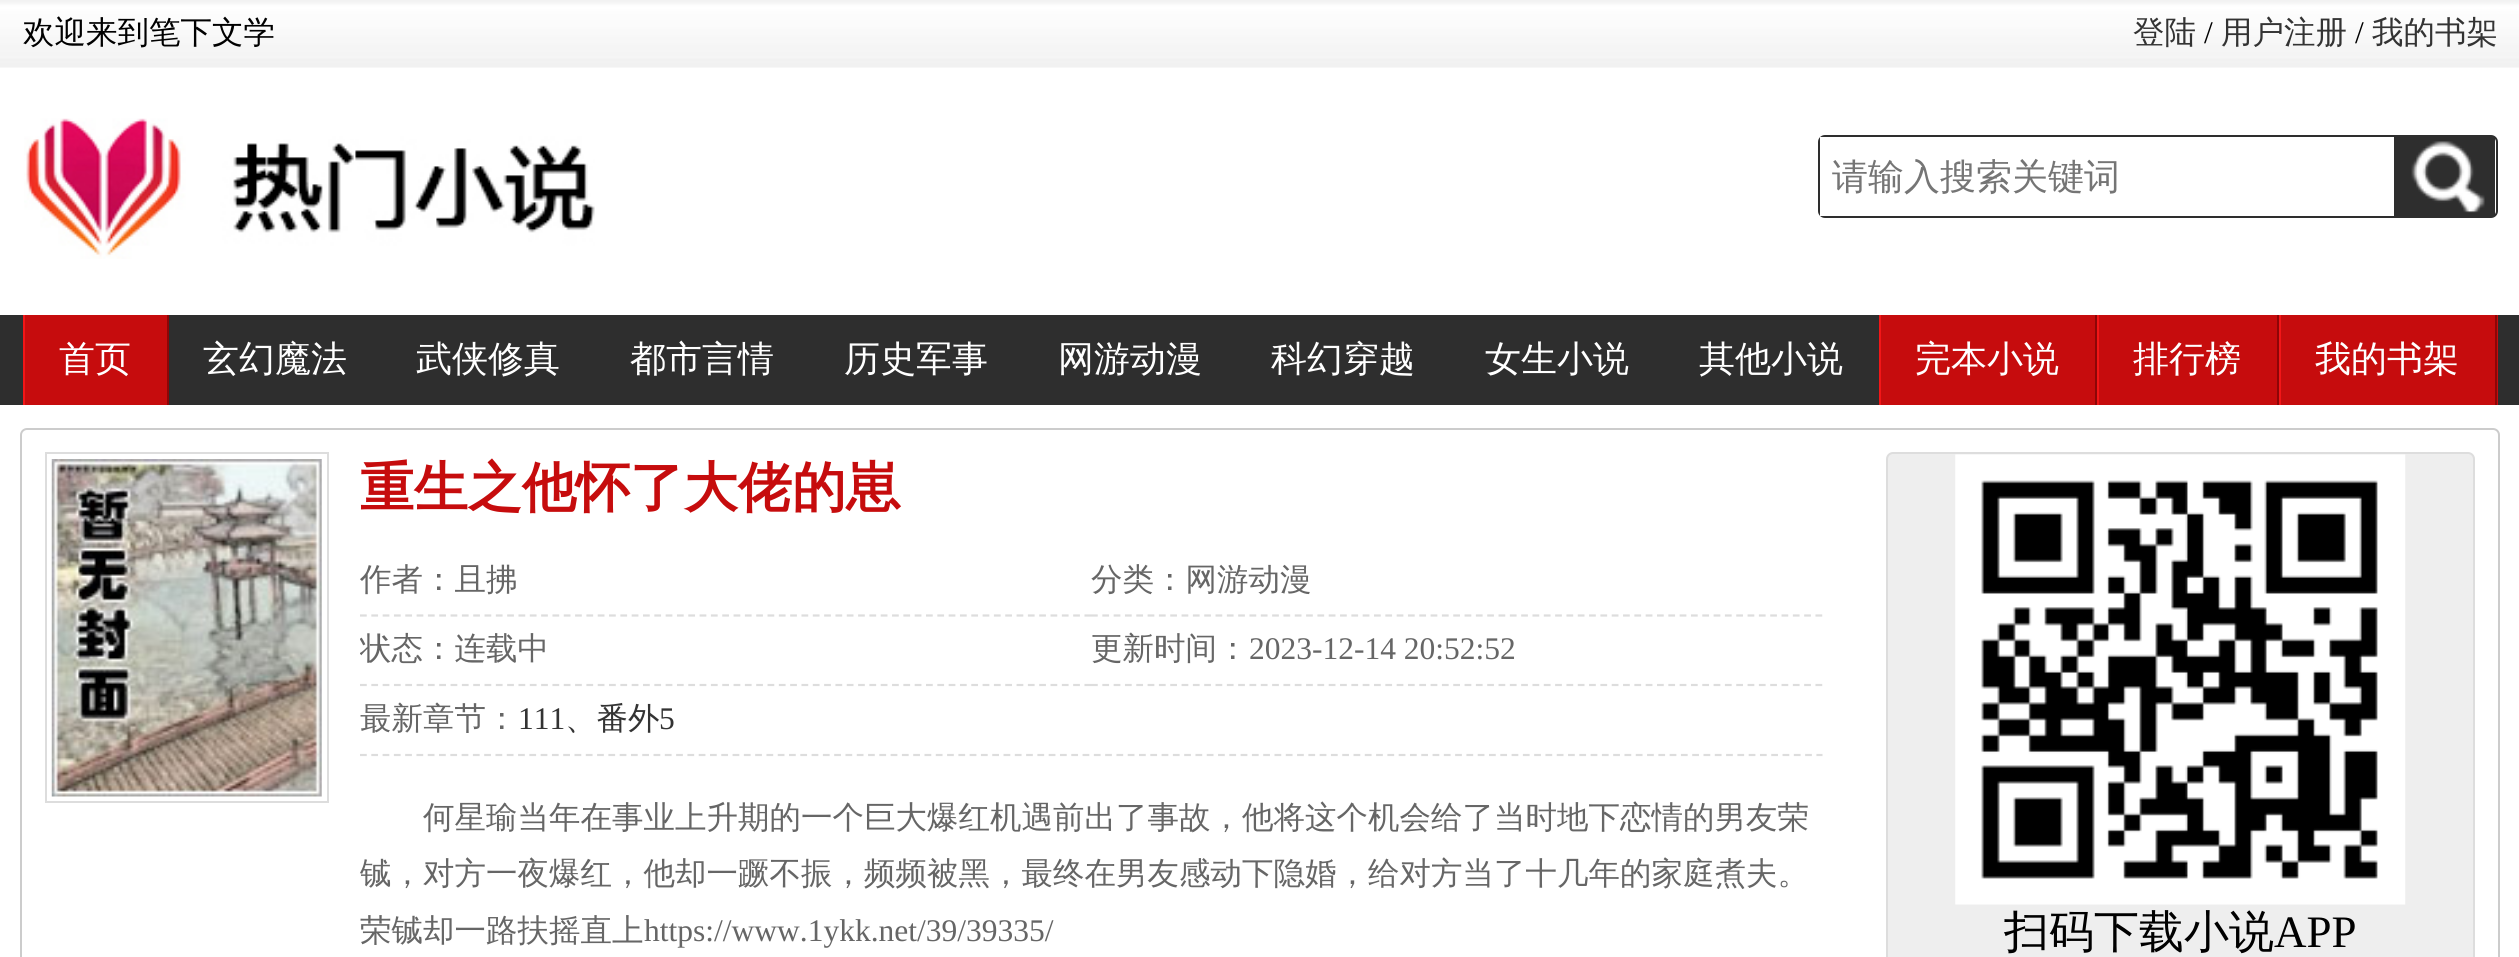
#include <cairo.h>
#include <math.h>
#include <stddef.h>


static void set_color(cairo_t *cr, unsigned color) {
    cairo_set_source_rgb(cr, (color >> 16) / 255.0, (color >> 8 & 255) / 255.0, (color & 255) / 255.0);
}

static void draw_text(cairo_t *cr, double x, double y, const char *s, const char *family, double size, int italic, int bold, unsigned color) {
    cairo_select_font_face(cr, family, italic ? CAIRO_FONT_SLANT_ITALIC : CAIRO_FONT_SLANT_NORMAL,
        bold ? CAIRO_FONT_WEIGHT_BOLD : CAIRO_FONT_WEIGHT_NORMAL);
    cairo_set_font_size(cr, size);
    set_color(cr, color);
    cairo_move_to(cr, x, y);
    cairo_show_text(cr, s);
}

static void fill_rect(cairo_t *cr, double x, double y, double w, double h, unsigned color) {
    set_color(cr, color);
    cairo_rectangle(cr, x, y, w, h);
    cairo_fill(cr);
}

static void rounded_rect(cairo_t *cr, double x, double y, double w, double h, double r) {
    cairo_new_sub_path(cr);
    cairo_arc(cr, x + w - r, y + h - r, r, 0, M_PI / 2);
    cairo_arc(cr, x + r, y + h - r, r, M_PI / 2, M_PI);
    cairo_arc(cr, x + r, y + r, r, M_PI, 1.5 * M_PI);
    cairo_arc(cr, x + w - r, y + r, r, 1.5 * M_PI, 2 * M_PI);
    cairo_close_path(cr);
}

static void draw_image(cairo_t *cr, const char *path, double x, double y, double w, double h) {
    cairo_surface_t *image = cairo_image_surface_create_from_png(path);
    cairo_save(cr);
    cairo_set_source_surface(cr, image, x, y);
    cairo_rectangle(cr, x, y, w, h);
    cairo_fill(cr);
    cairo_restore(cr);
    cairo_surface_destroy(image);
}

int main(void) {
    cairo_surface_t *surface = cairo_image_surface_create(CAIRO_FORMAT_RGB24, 2519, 957);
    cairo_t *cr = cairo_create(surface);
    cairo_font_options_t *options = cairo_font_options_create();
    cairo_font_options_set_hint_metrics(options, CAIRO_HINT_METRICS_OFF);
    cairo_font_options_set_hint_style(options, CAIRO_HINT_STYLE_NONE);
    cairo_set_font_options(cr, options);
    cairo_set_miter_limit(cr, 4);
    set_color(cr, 0xFFFFFF);
    cairo_paint(cr);
    draw_image(cr, "assets/img1.png", 0, 0, 2519, 68);
    draw_text(cr, 23, 43, "欢迎来到笔下文学", "WenQuanYi Zen Hei Medium", 31.5, 0, 0, 0x000000);
    draw_text(cr, 2133, 43, "登陆", "WenQuanYi Zen Hei Medium", 31.5, 0, 0, 0x333333);
    draw_text(cr, 2204, 43, "/", "Liberation Serif", 31.5, 0, 0, 0x000000);
    draw_text(cr, 2221, 43, "用户注册", "WenQuanYi Zen Hei Medium", 31.5, 0, 0, 0x333333);
    draw_text(cr, 2355, 43, "/", "Liberation Serif", 31.5, 0, 0, 0x000000);
    draw_text(cr, 2372, 43, "我的书架", "WenQuanYi Zen Hei Medium", 31.5, 0, 0, 0x333333);
    draw_image(cr, "assets/img2.png", 24, 118, 571, 141);
    rounded_rect(cr, 1819, 136, 678, 81, 6);
    set_color(cr, 0x2E2E2E);
    cairo_stroke(cr);
    fill_rect(cr, 1820, 137, 5, 79, 0xFFFFFF);
    cairo_save(cr);
    cairo_rectangle(cr, 1832, 155, 596, 48);
    cairo_clip(cr);
    draw_text(cr, 1832, 189, "请输入搜索关键词", "WenQuanYi Zen Hei Medium", 36, 0, 0, 0x757575);
    cairo_restore(cr);
    fill_rect(cr, 2394, 137, 101, 79, 0x2E2E2E);
    draw_image(cr, "assets/img3.png", 2411, 141, 74, 72);
    fill_rect(cr, 0, 315, 2519, 90, 0x2E2E2E);
    fill_rect(cr, 25, 315, 142, 90, 0xC60C0D);
    fill_rect(cr, 167, 315, 2, 90, 0x8D0607);
    fill_rect(cr, 23, 315, 2, 90, 0xF31617);
    draw_text(cr, 59, 371, "首页", "WenQuanYi Zen Hei Medium", 36, 0, 0, 0xFFFFFF);
    draw_text(cr, 203, 371, "玄幻魔法", "WenQuanYi Zen Hei Medium", 36, 0, 0, 0xFFFFFF);
    draw_text(cr, 416, 371, "武侠修真", "WenQuanYi Zen Hei Medium", 36, 0, 0, 0xFFFFFF);
    draw_text(cr, 630, 371, "都市言情", "WenQuanYi Zen Hei Medium", 36, 0, 0, 0xFFFFFF);
    draw_text(cr, 844, 371, "历史军事", "WenQuanYi Zen Hei Medium", 36, 0, 0, 0xFFFFFF);
    draw_text(cr, 1058, 371, "网游动漫", "WenQuanYi Zen Hei Medium", 36, 0, 0, 0xFFFFFF);
    draw_text(cr, 1271, 371, "科幻穿越", "WenQuanYi Zen Hei Medium", 36, 0, 0, 0xFFFFFF);
    draw_text(cr, 1485, 371, "女生小说", "WenQuanYi Zen Hei Medium", 36, 0, 0, 0xFFFFFF);
    draw_text(cr, 1699, 371, "其他小说", "WenQuanYi Zen Hei Medium", 36, 0, 0, 0xFFFFFF);
    fill_rect(cr, 1881, 315, 214, 90, 0xC60C0D);
    fill_rect(cr, 2095, 315, 2, 90, 0x8D0607);
    fill_rect(cr, 1879, 315, 2, 90, 0xF31617);
    draw_text(cr, 1915, 371, "完本小说", "WenQuanYi Zen Hei Medium", 36, 0, 0, 0xFFFFFF);
    fill_rect(cr, 2099, 315, 178, 90, 0xC60C0D);
    fill_rect(cr, 2277, 315, 2, 90, 0x8D0607);
    fill_rect(cr, 2097, 315, 2, 90, 0xF31617);
    draw_text(cr, 2133, 371, "排行榜", "WenQuanYi Zen Hei Medium", 36, 0, 0, 0xFFFFFF);
    fill_rect(cr, 2281, 315, 217, 90, 0xC60C0D);
    fill_rect(cr, 2495, 315, 2, 90, 0x8D0607);
    fill_rect(cr, 2279, 315, 2, 90, 0xF31617);
    draw_text(cr, 2315, 371, "我的书架", "WenQuanYi Zen Hei Medium", 36, 0, 0, 0xFFFFFF);
    rounded_rect(cr, 21, 429, 2478, 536, 6);
    set_color(cr, 0xCCCCCC);
    cairo_stroke(cr);
    cairo_rectangle(cr, 46, 453, 282, 349);
    set_color(cr, 0xDDDDDD);
    cairo_stroke(cr);
    draw_image(cr, "assets/img4.png", 51, 459, 271, 338);
    draw_text(cr, 360, 506, "重生之他怀了大佬的崽", "WenQuanYi Zen Hei", 54, 0, 1, 0xC60C0D);
    cairo_new_path(cr);
    cairo_move_to(cr, 360, 615.5);
    cairo_line_to(cr, 1091, 615.5);
    set_color(cr, 0xDDDDDD);
    cairo_set_line_width(cr, 2.2);
    cairo_set_dash(cr, (double[]){6.75, 4.57}, 2, 0);
    cairo_stroke(cr);
    draw_text(cr, 360, 590, "作者：且拂", "WenQuanYi Zen Hei Medium", 31.5, 0, 0, 0x666666);
    cairo_new_path(cr);
    cairo_move_to(cr, 1091, 615.5);
    cairo_line_to(cr, 1822.5, 615.5);
    set_color(cr, 0xDDDDDD);
    cairo_stroke(cr);
    draw_text(cr, 1091, 590, "分类：网游动漫", "WenQuanYi Zen Hei Medium", 31.5, 0, 0, 0x666666);
    cairo_new_path(cr);
    cairo_move_to(cr, 360, 685);
    cairo_line_to(cr, 1091, 685);
    set_color(cr, 0xDDDDDD);
    cairo_stroke(cr);
    cairo_save(cr);
    cairo_rectangle(cr, 360, 617, 731, 67);
    cairo_clip(cr);
    draw_text(cr, 360, 659, "状态：连载中", "WenQuanYi Zen Hei Medium", 31.5, 0, 0, 0x666666);
    cairo_restore(cr);
    cairo_new_path(cr);
    cairo_move_to(cr, 1091, 685);
    cairo_line_to(cr, 1822.5, 685);
    cairo_stroke(cr);
    draw_text(cr, 1091, 659, "更新时间：", "WenQuanYi Zen Hei Medium", 31.5, 0, 0, 0x666666);
    draw_text(cr, 1249, 659, "2023-12-14 20:52:52", "Liberation Serif", 31.5, 0, 0, 0x666666);
    cairo_new_path(cr);
    cairo_move_to(cr, 360, 755);
    cairo_line_to(cr, 1822.5, 755);
    set_color(cr, 0xDDDDDD);
    cairo_set_dash(cr, (double[]){6.75, 4.54}, 2, 0);
    cairo_stroke(cr);
    draw_text(cr, 360, 729, "最新章节：", "WenQuanYi Zen Hei Medium", 31.5, 0, 0, 0x666666);
    draw_text(cr, 518, 729, "111", "Liberation Serif", 31.5, 0, 0, 0x333333);
    draw_text(cr, 565, 729, "、番外", "WenQuanYi Zen Hei Medium", 31.5, 0, 0, 0x333333);
    draw_text(cr, 659, 729, "5", "Liberation Serif", 31.5, 0, 0, 0x333333);
    draw_text(cr, 423, 828, "何星瑜当年在事业上升期的一个巨大爆红机遇前出了事故，他将这个机会给了当时地下恋情的男友荣", "WenQuanYi Zen Hei Medium", 31.5, 0, 0, 0x666666);
    draw_text(cr, 360, 884, "铖，对方一夜爆红，他却一蹶不振，频频被黑，最终在男友感动下隐婚，给对方当了十几年的家庭煮夫。", "WenQuanYi Zen Hei Medium", 31.5, 0, 0, 0x666666);
    draw_text(cr, 360, 941, "荣铖却一路扶摇直上", "WenQuanYi Zen Hei Medium", 31.5, 0, 0, 0x666666);
    draw_text(cr, 644, 941, "https://www.1ykk.net/39/39335/", "Liberation Serif", 31.5, 0, 0, 0x666666);
    set_color(cr, 0xEEEEEE);
    rounded_rect(cr, 1887, 453, 587, 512, 6);
    cairo_fill_preserve(cr);
    set_color(cr, 0xDDDDDD);
    cairo_set_line_width(cr, 2);
    cairo_set_dash(cr, NULL, 0, 0);
    cairo_stroke(cr);
    draw_image(cr, "assets/img5.png", 1955, 454, 451, 451);
    draw_text(cr, 2004, 947, "扫码下载小说", "WenQuanYi Zen Hei Medium", 45, 0, 0, 0x000000);
    draw_text(cr, 2274, 947, "APP", "Liberation Serif", 45, 0, 0, 0x000000);
    cairo_surface_write_to_png(surface, "output.png");
    cairo_font_options_destroy(options);
    cairo_destroy(cr);
    cairo_surface_destroy(surface);
    return 0;
}
